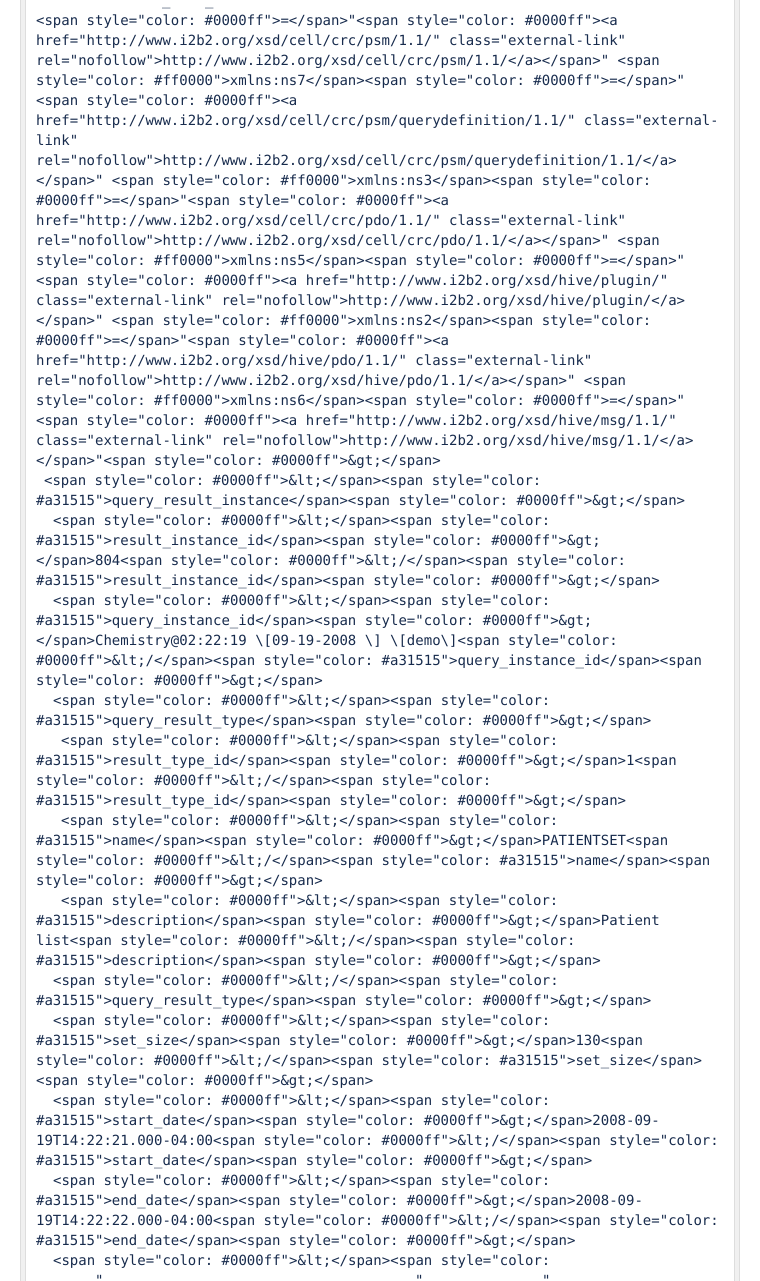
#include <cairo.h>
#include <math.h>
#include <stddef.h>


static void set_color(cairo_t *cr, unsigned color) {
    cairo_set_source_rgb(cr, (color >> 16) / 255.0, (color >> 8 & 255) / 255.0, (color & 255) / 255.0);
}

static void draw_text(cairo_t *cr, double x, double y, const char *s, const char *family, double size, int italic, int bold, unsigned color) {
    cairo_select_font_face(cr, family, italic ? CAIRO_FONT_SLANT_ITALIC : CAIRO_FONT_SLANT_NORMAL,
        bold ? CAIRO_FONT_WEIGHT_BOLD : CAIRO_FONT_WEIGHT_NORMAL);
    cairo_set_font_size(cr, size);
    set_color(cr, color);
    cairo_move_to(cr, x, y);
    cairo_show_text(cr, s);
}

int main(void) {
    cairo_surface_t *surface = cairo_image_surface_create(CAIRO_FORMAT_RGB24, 760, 1281);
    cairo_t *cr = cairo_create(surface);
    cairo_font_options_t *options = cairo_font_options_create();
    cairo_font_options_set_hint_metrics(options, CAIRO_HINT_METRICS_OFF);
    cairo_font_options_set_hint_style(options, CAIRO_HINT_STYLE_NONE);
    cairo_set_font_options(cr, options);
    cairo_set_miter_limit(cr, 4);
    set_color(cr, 0xFFFFFF);
    cairo_paint(cr);
    set_color(cr, 0xF0F0F0);
    cairo_rectangle(cr, 20.5, -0.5, 719, 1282);
    cairo_fill_preserve(cr);
    set_color(cr, 0xDDDDDD);
    cairo_set_line_width(cr, 1);
    cairo_stroke(cr);
    set_color(cr, 0xFFFFFF);
    cairo_rectangle(cr, 25.5, -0.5, 709, 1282);
    cairo_fill_preserve(cr);
    set_color(cr, 0xDDDDDD);
    cairo_stroke(cr);
    draw_text(cr, 162, 5, "_", "DejaVu Sans Mono", 14, 0, 0, 0x172B4D);
    draw_text(cr, 205, 5, "_", "DejaVu Sans Mono", 14, 0, 0, 0x172B4D);
    draw_text(cr, 36, 25, "<span style=\"color: #0000ff\">=</span>\"<span style=\"color: #0000ff\"><a", "DejaVu Sans Mono", 14, 0, 0, 0x172B4D);
    draw_text(cr, 36, 45, "href=\"http://www.i2b2.org/xsd/cell/crc/psm/1.1/\" class=\"external-link\"", "DejaVu Sans Mono", 14, 0, 0, 0x172B4D);
    draw_text(cr, 36, 65, "rel=\"nofollow\">http://www.i2b2.org/xsd/cell/crc/psm/1.1/</a></span>\" <span", "DejaVu Sans Mono", 14, 0, 0, 0x172B4D);
    draw_text(cr, 36, 85, "style=\"color: #ff0000\">xmlns:ns7</span><span style=\"color: #0000ff\">=</span>\"", "DejaVu Sans Mono", 14, 0, 0, 0x172B4D);
    draw_text(cr, 36, 105, "<span style=\"color: #0000ff\"><a", "DejaVu Sans Mono", 14, 0, 0, 0x172B4D);
    draw_text(cr, 36, 125, "href=\"http://www.i2b2.org/xsd/cell/crc/psm/querydefinition/1.1/\" class=\"external-", "DejaVu Sans Mono", 14, 0, 0, 0x172B4D);
    draw_text(cr, 36, 145, "link\"", "DejaVu Sans Mono", 14, 0, 0, 0x172B4D);
    draw_text(cr, 36, 165, "rel=\"nofollow\">http://www.i2b2.org/xsd/cell/crc/psm/querydefinition/1.1/</a>", "DejaVu Sans Mono", 14, 0, 0, 0x172B4D);
    draw_text(cr, 36, 185, "</span>\" <span style=\"color: #ff0000\">xmlns:ns3</span><span style=\"color:", "DejaVu Sans Mono", 14, 0, 0, 0x172B4D);
    draw_text(cr, 36, 205, "#0000ff\">=</span>\"<span style=\"color: #0000ff\"><a", "DejaVu Sans Mono", 14, 0, 0, 0x172B4D);
    draw_text(cr, 36, 225, "href=\"http://www.i2b2.org/xsd/cell/crc/pdo/1.1/\" class=\"external-link\"", "DejaVu Sans Mono", 14, 0, 0, 0x172B4D);
    draw_text(cr, 36, 245, "rel=\"nofollow\">http://www.i2b2.org/xsd/cell/crc/pdo/1.1/</a></span>\" <span", "DejaVu Sans Mono", 14, 0, 0, 0x172B4D);
    draw_text(cr, 36, 265, "style=\"color: #ff0000\">xmlns:ns5</span><span style=\"color: #0000ff\">=</span>\"", "DejaVu Sans Mono", 14, 0, 0, 0x172B4D);
    draw_text(cr, 36, 285, "<span style=\"color: #0000ff\"><a href=\"http://www.i2b2.org/xsd/hive/plugin/\"", "DejaVu Sans Mono", 14, 0, 0, 0x172B4D);
    draw_text(cr, 36, 305, "class=\"external-link\" rel=\"nofollow\">http://www.i2b2.org/xsd/hive/plugin/</a>", "DejaVu Sans Mono", 14, 0, 0, 0x172B4D);
    draw_text(cr, 36, 325, "</span>\" <span style=\"color: #ff0000\">xmlns:ns2</span><span style=\"color:", "DejaVu Sans Mono", 14, 0, 0, 0x172B4D);
    draw_text(cr, 36, 345, "#0000ff\">=</span>\"<span style=\"color: #0000ff\"><a", "DejaVu Sans Mono", 14, 0, 0, 0x172B4D);
    draw_text(cr, 36, 365, "href=\"http://www.i2b2.org/xsd/hive/pdo/1.1/\" class=\"external-link\"", "DejaVu Sans Mono", 14, 0, 0, 0x172B4D);
    draw_text(cr, 36, 385, "rel=\"nofollow\">http://www.i2b2.org/xsd/hive/pdo/1.1/</a></span>\" <span", "DejaVu Sans Mono", 14, 0, 0, 0x172B4D);
    draw_text(cr, 36, 405, "style=\"color: #ff0000\">xmlns:ns6</span><span style=\"color: #0000ff\">=</span>\"", "DejaVu Sans Mono", 14, 0, 0, 0x172B4D);
    draw_text(cr, 36, 425, "<span style=\"color: #0000ff\"><a href=\"http://www.i2b2.org/xsd/hive/msg/1.1/\"", "DejaVu Sans Mono", 14, 0, 0, 0x172B4D);
    draw_text(cr, 36, 445, "class=\"external-link\" rel=\"nofollow\">http://www.i2b2.org/xsd/hive/msg/1.1/</a>", "DejaVu Sans Mono", 14, 0, 0, 0x172B4D);
    draw_text(cr, 36, 465, "</span>\"<span style=\"color: #0000ff\">&gt;</span>", "DejaVu Sans Mono", 14, 0, 0, 0x172B4D);
    draw_text(cr, 44, 485, "<span style=\"color: #0000ff\">&lt;</span><span style=\"color:", "DejaVu Sans Mono", 14, 0, 0, 0x172B4D);
    draw_text(cr, 36, 505, "#a31515\">query_result_instance</span><span style=\"color: #0000ff\">&gt;</span>", "DejaVu Sans Mono", 14, 0, 0, 0x172B4D);
    draw_text(cr, 53, 525, "<span style=\"color: #0000ff\">&lt;</span><span style=\"color:", "DejaVu Sans Mono", 14, 0, 0, 0x172B4D);
    draw_text(cr, 36, 545, "#a31515\">result_instance_id</span><span style=\"color: #0000ff\">&gt;", "DejaVu Sans Mono", 14, 0, 0, 0x172B4D);
    draw_text(cr, 36, 565, "</span>804<span style=\"color: #0000ff\">&lt;/</span><span style=\"color:", "DejaVu Sans Mono", 14, 0, 0, 0x172B4D);
    draw_text(cr, 36, 585, "#a31515\">result_instance_id</span><span style=\"color: #0000ff\">&gt;</span>", "DejaVu Sans Mono", 14, 0, 0, 0x172B4D);
    draw_text(cr, 53, 605, "<span style=\"color: #0000ff\">&lt;</span><span style=\"color:", "DejaVu Sans Mono", 14, 0, 0, 0x172B4D);
    draw_text(cr, 36, 625, "#a31515\">query_instance_id</span><span style=\"color: #0000ff\">&gt;", "DejaVu Sans Mono", 14, 0, 0, 0x172B4D);
    draw_text(cr, 36, 645, "</span>Chemistry@02:22:19 \\[09-19-2008 \\] \\[demo\\]<span style=\"color:", "DejaVu Sans Mono", 14, 0, 0, 0x172B4D);
    draw_text(cr, 36, 665, "#0000ff\">&lt;/</span><span style=\"color: #a31515\">query_instance_id</span><span", "DejaVu Sans Mono", 14, 0, 0, 0x172B4D);
    draw_text(cr, 36, 685, "style=\"color: #0000ff\">&gt;</span>", "DejaVu Sans Mono", 14, 0, 0, 0x172B4D);
    draw_text(cr, 53, 705, "<span style=\"color: #0000ff\">&lt;</span><span style=\"color:", "DejaVu Sans Mono", 14, 0, 0, 0x172B4D);
    draw_text(cr, 36, 725, "#a31515\">query_result_type</span><span style=\"color: #0000ff\">&gt;</span>", "DejaVu Sans Mono", 14, 0, 0, 0x172B4D);
    draw_text(cr, 61, 745, "<span style=\"color: #0000ff\">&lt;</span><span style=\"color:", "DejaVu Sans Mono", 14, 0, 0, 0x172B4D);
    draw_text(cr, 36, 765, "#a31515\">result_type_id</span><span style=\"color: #0000ff\">&gt;</span>1<span", "DejaVu Sans Mono", 14, 0, 0, 0x172B4D);
    draw_text(cr, 36, 785, "style=\"color: #0000ff\">&lt;/</span><span style=\"color:", "DejaVu Sans Mono", 14, 0, 0, 0x172B4D);
    draw_text(cr, 36, 805, "#a31515\">result_type_id</span><span style=\"color: #0000ff\">&gt;</span>", "DejaVu Sans Mono", 14, 0, 0, 0x172B4D);
    draw_text(cr, 61, 825, "<span style=\"color: #0000ff\">&lt;</span><span style=\"color:", "DejaVu Sans Mono", 14, 0, 0, 0x172B4D);
    draw_text(cr, 36, 845, "#a31515\">name</span><span style=\"color: #0000ff\">&gt;</span>PATIENTSET<span", "DejaVu Sans Mono", 14, 0, 0, 0x172B4D);
    draw_text(cr, 36, 865, "style=\"color: #0000ff\">&lt;/</span><span style=\"color: #a31515\">name</span><span", "DejaVu Sans Mono", 14, 0, 0, 0x172B4D);
    draw_text(cr, 36, 885, "style=\"color: #0000ff\">&gt;</span>", "DejaVu Sans Mono", 14, 0, 0, 0x172B4D);
    draw_text(cr, 61, 905, "<span style=\"color: #0000ff\">&lt;</span><span style=\"color:", "DejaVu Sans Mono", 14, 0, 0, 0x172B4D);
    draw_text(cr, 36, 925, "#a31515\">description</span><span style=\"color: #0000ff\">&gt;</span>Patient", "DejaVu Sans Mono", 14, 0, 0, 0x172B4D);
    draw_text(cr, 36, 945, "list<span style=\"color: #0000ff\">&lt;/</span><span style=\"color:", "DejaVu Sans Mono", 14, 0, 0, 0x172B4D);
    draw_text(cr, 36, 965, "#a31515\">description</span><span style=\"color: #0000ff\">&gt;</span>", "DejaVu Sans Mono", 14, 0, 0, 0x172B4D);
    draw_text(cr, 53, 985, "<span style=\"color: #0000ff\">&lt;/</span><span style=\"color:", "DejaVu Sans Mono", 14, 0, 0, 0x172B4D);
    draw_text(cr, 36, 1005, "#a31515\">query_result_type</span><span style=\"color: #0000ff\">&gt;</span>", "DejaVu Sans Mono", 14, 0, 0, 0x172B4D);
    draw_text(cr, 53, 1025, "<span style=\"color: #0000ff\">&lt;</span><span style=\"color:", "DejaVu Sans Mono", 14, 0, 0, 0x172B4D);
    draw_text(cr, 36, 1045, "#a31515\">set_size</span><span style=\"color: #0000ff\">&gt;</span>130<span", "DejaVu Sans Mono", 14, 0, 0, 0x172B4D);
    draw_text(cr, 36, 1065, "style=\"color: #0000ff\">&lt;/</span><span style=\"color: #a31515\">set_size</span>", "DejaVu Sans Mono", 14, 0, 0, 0x172B4D);
    draw_text(cr, 36, 1085, "<span style=\"color: #0000ff\">&gt;</span>", "DejaVu Sans Mono", 14, 0, 0, 0x172B4D);
    draw_text(cr, 53, 1105, "<span style=\"color: #0000ff\">&lt;</span><span style=\"color:", "DejaVu Sans Mono", 14, 0, 0, 0x172B4D);
    draw_text(cr, 36, 1125, "#a31515\">start_date</span><span style=\"color: #0000ff\">&gt;</span>2008-09-", "DejaVu Sans Mono", 14, 0, 0, 0x172B4D);
    draw_text(cr, 36, 1145, "19T14:22:21.000-04:00<span style=\"color: #0000ff\">&lt;/</span><span style=\"color:", "DejaVu Sans Mono", 14, 0, 0, 0x172B4D);
    draw_text(cr, 36, 1165, "#a31515\">start_date</span><span style=\"color: #0000ff\">&gt;</span>", "DejaVu Sans Mono", 14, 0, 0, 0x172B4D);
    draw_text(cr, 53, 1185, "<span style=\"color: #0000ff\">&lt;</span><span style=\"color:", "DejaVu Sans Mono", 14, 0, 0, 0x172B4D);
    draw_text(cr, 36, 1205, "#a31515\">end_date</span><span style=\"color: #0000ff\">&gt;</span>2008-09-", "DejaVu Sans Mono", 14, 0, 0, 0x172B4D);
    draw_text(cr, 36, 1225, "19T14:22:22.000-04:00<span style=\"color: #0000ff\">&lt;/</span><span style=\"color:", "DejaVu Sans Mono", 14, 0, 0, 0x172B4D);
    draw_text(cr, 36, 1245, "#a31515\">end_date</span><span style=\"color: #0000ff\">&gt;</span>", "DejaVu Sans Mono", 14, 0, 0, 0x172B4D);
    draw_text(cr, 53, 1265, "<span style=\"color: #0000ff\">&lt;</span><span style=\"color:", "DejaVu Sans Mono", 14, 0, 0, 0x172B4D);
    draw_text(cr, 95, 1285, "\"", "DejaVu Sans Mono", 14, 0, 0, 0x172B4D);
    draw_text(cr, 415, 1285, "\"", "DejaVu Sans Mono", 14, 0, 0, 0x172B4D);
    draw_text(cr, 542, 1285, "\"", "DejaVu Sans Mono", 14, 0, 0, 0x172B4D);
    cairo_surface_write_to_png(surface, "output.png");
    cairo_font_options_destroy(options);
    cairo_destroy(cr);
    cairo_surface_destroy(surface);
    return 0;
}
